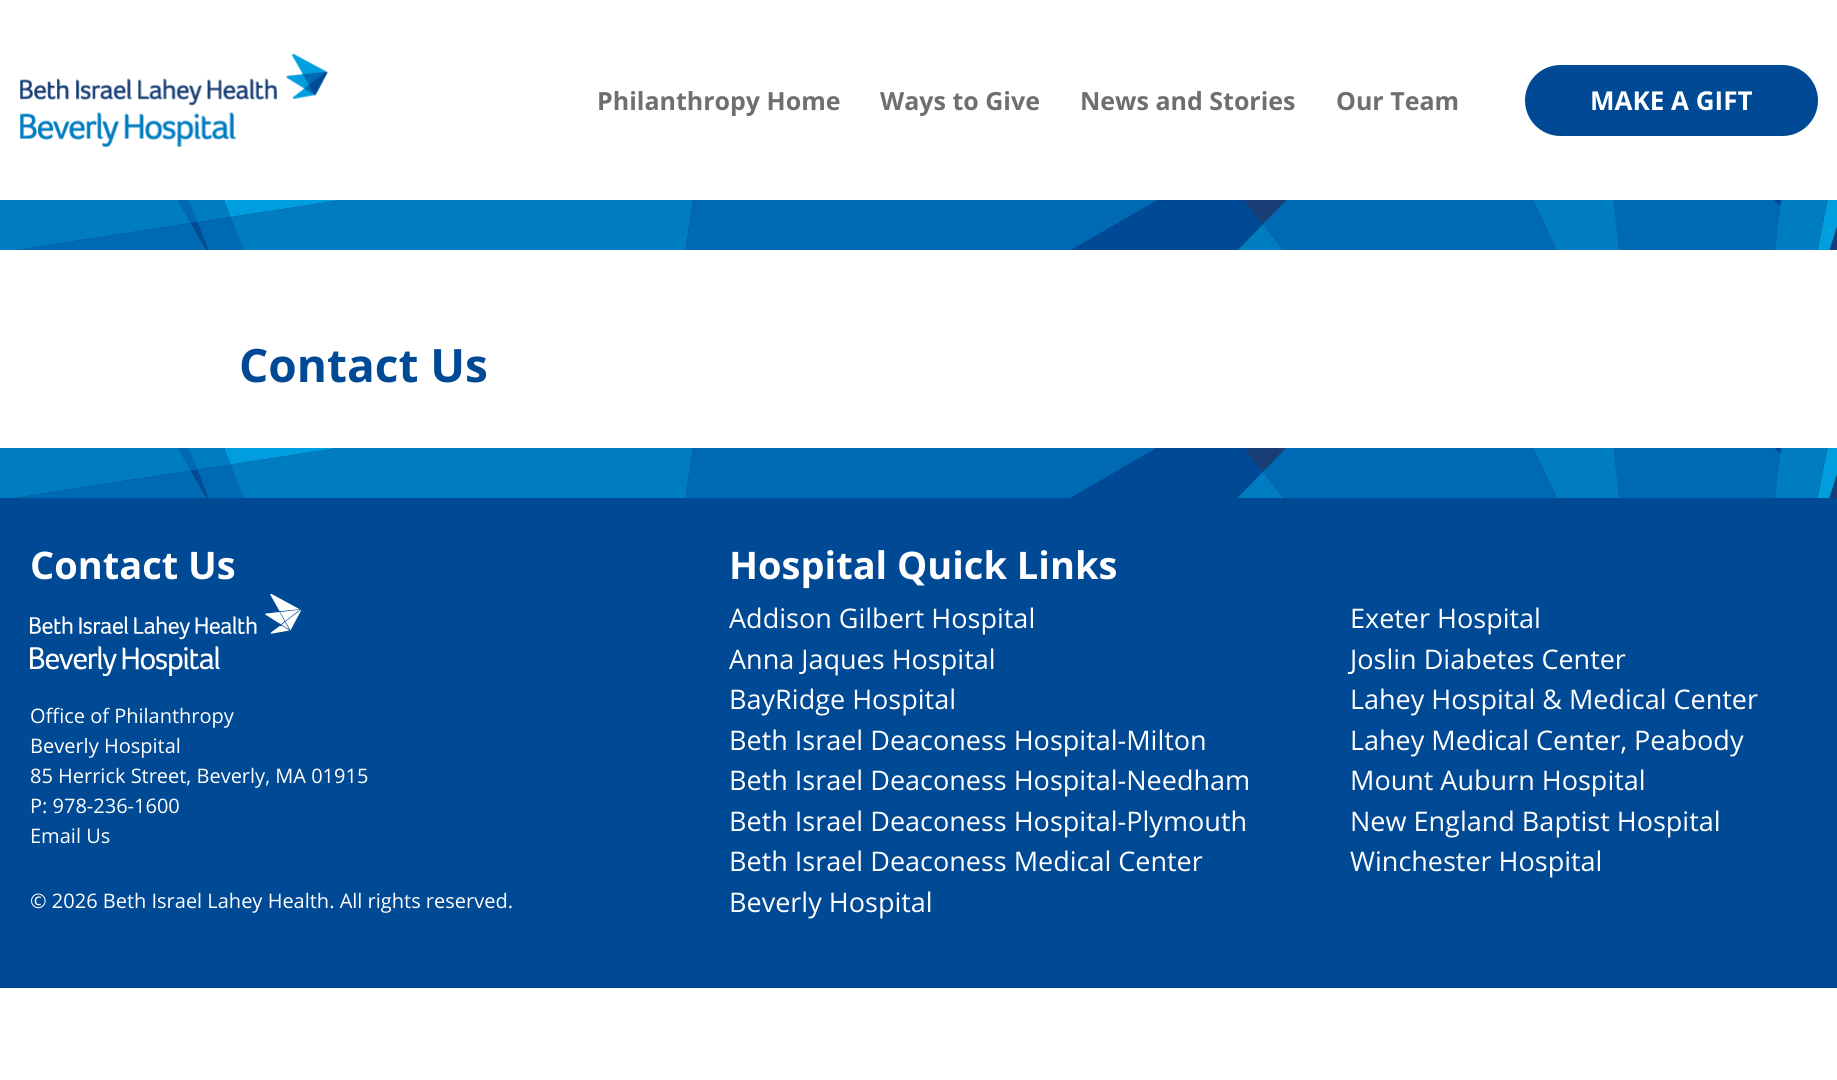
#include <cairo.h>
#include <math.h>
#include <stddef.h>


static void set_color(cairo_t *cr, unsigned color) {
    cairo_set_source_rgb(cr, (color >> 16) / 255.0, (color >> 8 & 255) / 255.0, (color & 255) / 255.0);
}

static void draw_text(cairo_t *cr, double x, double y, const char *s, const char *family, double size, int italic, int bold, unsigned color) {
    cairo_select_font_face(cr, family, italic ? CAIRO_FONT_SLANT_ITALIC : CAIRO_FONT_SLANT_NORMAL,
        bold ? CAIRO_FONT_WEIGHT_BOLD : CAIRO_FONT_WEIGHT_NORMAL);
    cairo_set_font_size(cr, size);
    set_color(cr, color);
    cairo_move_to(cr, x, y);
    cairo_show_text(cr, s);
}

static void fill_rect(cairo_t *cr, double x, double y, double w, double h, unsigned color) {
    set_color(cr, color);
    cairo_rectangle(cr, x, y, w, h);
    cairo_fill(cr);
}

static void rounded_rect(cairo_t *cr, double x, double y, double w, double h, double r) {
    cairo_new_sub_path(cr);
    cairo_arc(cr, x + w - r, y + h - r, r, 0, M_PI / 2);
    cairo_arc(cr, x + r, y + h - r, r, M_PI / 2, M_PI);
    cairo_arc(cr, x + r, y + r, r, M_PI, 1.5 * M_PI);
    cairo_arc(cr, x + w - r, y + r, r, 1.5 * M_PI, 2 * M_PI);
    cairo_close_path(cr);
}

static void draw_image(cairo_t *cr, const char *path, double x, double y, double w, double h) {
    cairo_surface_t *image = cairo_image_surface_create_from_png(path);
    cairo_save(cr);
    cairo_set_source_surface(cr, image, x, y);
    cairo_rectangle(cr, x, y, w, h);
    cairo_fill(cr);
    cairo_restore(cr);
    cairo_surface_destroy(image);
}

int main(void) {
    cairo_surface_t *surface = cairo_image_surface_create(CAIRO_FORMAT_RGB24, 1837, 1080);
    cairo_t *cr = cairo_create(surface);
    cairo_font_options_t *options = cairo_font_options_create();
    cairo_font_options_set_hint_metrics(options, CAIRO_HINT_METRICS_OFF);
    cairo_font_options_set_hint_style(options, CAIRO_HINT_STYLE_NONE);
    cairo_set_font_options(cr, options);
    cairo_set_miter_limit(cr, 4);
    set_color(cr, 0xFFFFFF);
    cairo_paint(cr);
    draw_image(cr, "assets/img1.png", 20, 53, 308, 95);
    draw_text(cr, 597, 110, "Philanthropy Home", "Open Sans", 25, 0, 1, 0x706F6F);
    draw_text(cr, 880, 110, "Ways to Give", "Open Sans", 25, 0, 1, 0x706F6F);
    draw_text(cr, 1080, 110, "News and Stories", "Open Sans", 25, 0, 1, 0x706F6F);
    draw_text(cr, 1336, 110, "Our Team", "Open Sans", 25, 0, 1, 0x706F6F);
    set_color(cr, 0x004994);
    rounded_rect(cr, 1525, 65, 293, 71, 35.5);
    cairo_fill(cr);
    draw_text(cr, 1590, 110, "MAKE A GIFT", "Open Sans", 26, 0, 1, 0xFFFFFF);
    fill_rect(cr, 16, 200, 1821, 50, 0x183E75);
    draw_image(cr, "assets/img2.png", 0, 200, 1837, 50);
    draw_text(cr, 239, 382, "Contact Us", "Open Sans", 46, 0, 1, 0x004994);
    fill_rect(cr, 13, 448, 1824, 50, 0x183E75);
    draw_image(cr, "assets/img3.png", 0, 448, 1837, 50);
    fill_rect(cr, 0, 498, 1837, 490, 0x004994);
    draw_text(cr, 30, 579, "Contact Us", "Open Sans", 38, 0, 1, 0xFFFFFF);
    draw_image(cr, "assets/img4.png", 30, 594, 271, 82);
    draw_text(cr, 30, 723, "Office of Philanthropy", "Open Sans", 20, 0, 0, 0xFFFFFF);
    draw_text(cr, 30, 753, "Beverly Hospital", "Open Sans", 20, 0, 0, 0xFFFFFF);
    draw_text(cr, 30, 783, "85 Herrick Street, Beverly, MA 01915", "Open Sans", 20, 0, 0, 0xFFFFFF);
    draw_text(cr, 30, 813, "P: 978-236-1600", "Open Sans", 20, 0, 0, 0xFFFFFF);
    draw_text(cr, 30, 843, "Email Us", "Open Sans", 20, 0, 0, 0xFFFFFF);
    draw_text(cr, 30, 908, "© 2026 Beth Israel Lahey Health. All rights reserved.", "Open Sans", 20, 0, 0, 0xFFFFFF);
    draw_text(cr, 729, 579, "Hospital Quick Links", "Open Sans", 38, 0, 1, 0xFFFFFF);
    draw_text(cr, 729, 628, "Addison Gilbert Hospital", "Open Sans", 27, 0, 0, 0xFFFFFF);
    draw_text(cr, 729, 669, "Anna Jaques Hospital", "Open Sans", 27, 0, 0, 0xFFFFFF);
    draw_text(cr, 729, 709, "BayRidge Hospital", "Open Sans", 27, 0, 0, 0xFFFFFF);
    draw_text(cr, 729, 750, "Beth Israel Deaconess Hospital-Milton", "Open Sans", 27, 0, 0, 0xFFFFFF);
    draw_text(cr, 729, 790, "Beth Israel Deaconess Hospital-Needham", "Open Sans", 27, 0, 0, 0xFFFFFF);
    draw_text(cr, 729, 831, "Beth Israel Deaconess Hospital-Plymouth", "Open Sans", 27, 0, 0, 0xFFFFFF);
    draw_text(cr, 729, 871, "Beth Israel Deaconess Medical Center", "Open Sans", 27, 0, 0, 0xFFFFFF);
    draw_text(cr, 729, 912, "Beverly Hospital", "Open Sans", 27, 0, 0, 0xFFFFFF);
    draw_text(cr, 1350, 628, "Exeter Hospital", "Open Sans", 27, 0, 0, 0xFFFFFF);
    draw_text(cr, 1350, 669, "Joslin Diabetes Center", "Open Sans", 27, 0, 0, 0xFFFFFF);
    draw_text(cr, 1350, 709, "Lahey Hospital & Medical Center", "Open Sans", 27, 0, 0, 0xFFFFFF);
    draw_text(cr, 1350, 750, "Lahey Medical Center, Peabody", "Open Sans", 27, 0, 0, 0xFFFFFF);
    draw_text(cr, 1350, 790, "Mount Auburn Hospital", "Open Sans", 27, 0, 0, 0xFFFFFF);
    draw_text(cr, 1350, 831, "New England Baptist Hospital", "Open Sans", 27, 0, 0, 0xFFFFFF);
    draw_text(cr, 1350, 871, "Winchester Hospital", "Open Sans", 27, 0, 0, 0xFFFFFF);
    cairo_surface_write_to_png(surface, "output.png");
    cairo_font_options_destroy(options);
    cairo_destroy(cr);
    cairo_surface_destroy(surface);
    return 0;
}
